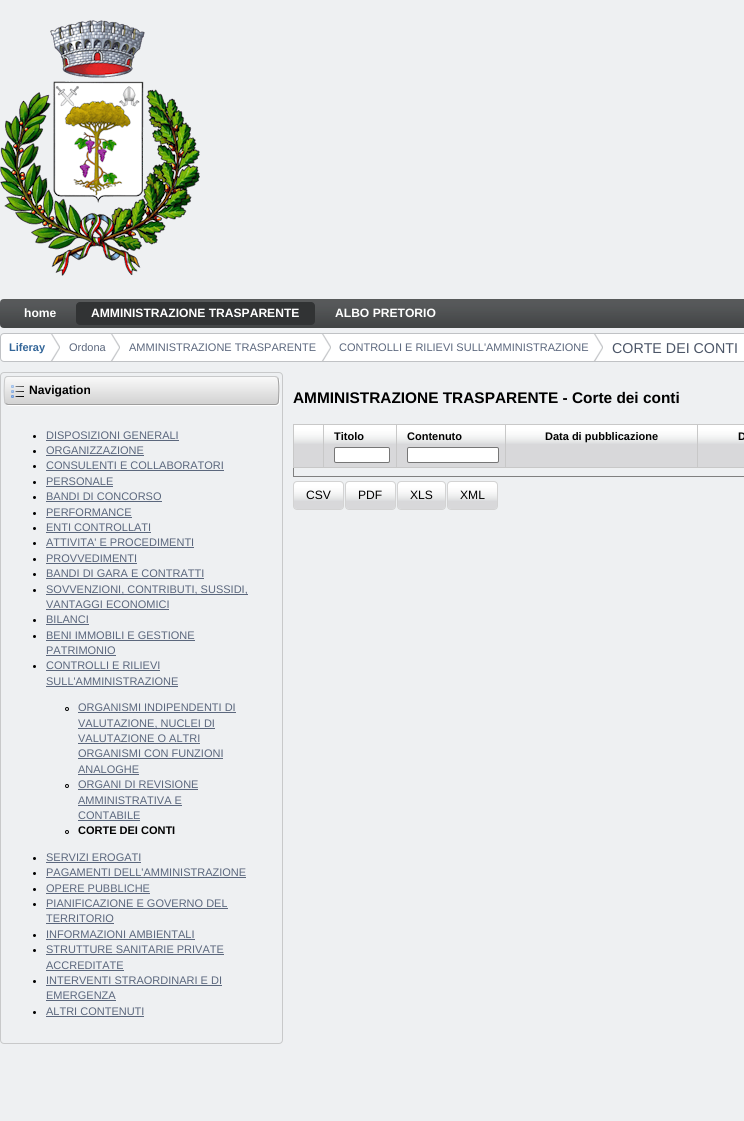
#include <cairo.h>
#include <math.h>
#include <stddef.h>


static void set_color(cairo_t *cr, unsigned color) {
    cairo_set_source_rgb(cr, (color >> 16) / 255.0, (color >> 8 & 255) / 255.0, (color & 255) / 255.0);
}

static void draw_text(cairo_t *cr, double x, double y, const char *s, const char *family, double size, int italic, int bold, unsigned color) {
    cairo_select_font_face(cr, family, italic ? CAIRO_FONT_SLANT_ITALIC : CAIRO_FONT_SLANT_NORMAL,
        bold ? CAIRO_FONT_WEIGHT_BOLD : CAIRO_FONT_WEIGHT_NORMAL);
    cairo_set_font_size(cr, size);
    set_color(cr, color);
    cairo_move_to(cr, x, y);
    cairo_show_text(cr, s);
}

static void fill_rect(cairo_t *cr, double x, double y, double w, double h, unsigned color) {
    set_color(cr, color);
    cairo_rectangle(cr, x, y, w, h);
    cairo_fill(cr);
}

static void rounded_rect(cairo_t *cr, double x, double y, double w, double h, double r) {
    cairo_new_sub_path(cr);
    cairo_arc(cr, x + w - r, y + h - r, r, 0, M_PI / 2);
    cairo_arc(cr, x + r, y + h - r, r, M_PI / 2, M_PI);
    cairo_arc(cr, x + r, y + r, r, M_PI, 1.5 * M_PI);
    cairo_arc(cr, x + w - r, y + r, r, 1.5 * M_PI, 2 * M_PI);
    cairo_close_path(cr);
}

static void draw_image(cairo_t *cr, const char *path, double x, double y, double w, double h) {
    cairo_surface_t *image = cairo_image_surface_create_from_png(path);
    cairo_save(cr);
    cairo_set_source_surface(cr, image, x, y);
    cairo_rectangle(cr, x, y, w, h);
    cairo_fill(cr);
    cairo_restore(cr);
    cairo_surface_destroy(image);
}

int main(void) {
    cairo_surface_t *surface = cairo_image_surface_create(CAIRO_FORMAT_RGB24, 744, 1121);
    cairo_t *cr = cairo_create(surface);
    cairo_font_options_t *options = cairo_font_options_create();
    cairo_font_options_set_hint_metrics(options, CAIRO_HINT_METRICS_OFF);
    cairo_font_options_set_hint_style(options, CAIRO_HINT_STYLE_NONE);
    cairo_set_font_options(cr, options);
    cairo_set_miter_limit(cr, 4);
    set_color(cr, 0xEEF0F2);
    cairo_paint(cr);
    draw_image(cr, "assets/img1.png", 0, 20, 200, 256);
    draw_image(cr, "assets/img2.png", 0, 299, 744, 29);
    draw_text(cr, 24, 317, "home", "Liberation Sans", 12.1, 0, 1, 0xFFFFFF);
    set_color(cr, 0x313334);
    rounded_rect(cr, 76, 302, 239, 23, 4);
    cairo_fill(cr);
    draw_text(cr, 91, 317, "AMMINISTRAZIONE TRASPARENTE", "Liberation Sans", 12.1, 0, 1, 0xFFFFFF);
    draw_text(cr, 335, 317, "ALBO PRETORIO", "Liberation Sans", 12.1, 0, 1, 0xFFFFFF);
    rounded_rect(cr, 0.5, 333.5, 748, 28, 3.5);
    cairo_fill_preserve(cr);
    set_color(cr, 0xC0C2C5);
    cairo_set_line_width(cr, 1);
    cairo_stroke(cr);
    draw_image(cr, "assets/img3.png", 50, 334, 10, 27);
    draw_text(cr, 9, 351, "Liferay", "Liberation Sans", 11, 0, 1, 0x336699);
    draw_image(cr, "assets/img3.png", 110, 334, 10, 27);
    draw_text(cr, 69, 351, "Ordona", "Liberation Sans", 11, 0, 0, 0x5B677D);
    draw_image(cr, "assets/img3.png", 321, 334, 10, 27);
    draw_text(cr, 129, 351, "AMMINISTRAZIONE TRASPARENTE", "Liberation Sans", 11, 0, 0, 0x5B677D);
    draw_image(cr, "assets/img3.png", 593, 334, 10, 27);
    draw_text(cr, 339, 351, "CONTROLLI E RILIEVI SULL'AMMINISTRAZIONE", "Liberation Sans", 11, 0, 0, 0x5B677D);
    draw_text(cr, 612, 353, "CORTE DEI CONTI", "Liberation Sans", 14.25, 0, 0, 0x4B5567);
    rounded_rect(cr, 0.5, 372.5, 282, 671, 3.5);
    set_color(cr, 0xC8C9CA);
    cairo_stroke(cr);
    set_color(cr, 0xFFFFFF);
    cairo_new_path(cr);
    cairo_move_to(cr, 6, 404);
    cairo_curve_to(cr, 6, 405, 8, 406, 9, 406);
    cairo_line_to(cr, 276, 406);
    cairo_curve_to(cr, 278, 406, 280, 404, 280, 402);
    cairo_line_to(cr, 280, 381);
    cairo_curve_to(cr, 280, 380, 279, 378, 278, 378);
    cairo_curve_to(cr, 280, 380, 279, 391, 279, 394);
    cairo_curve_to(cr, 279, 397, 280, 405, 275, 405);
    cairo_line_to(cr, 6, 405);
    cairo_close_path(cr);
    cairo_fill(cr);
    set_color(cr, 0xD4D4D4);
    rounded_rect(cr, 4, 376, 275, 29, 4);
    cairo_fill(cr);
    draw_image(cr, "assets/img4.png", 4, 377, 275, 26);
    cairo_new_path(cr);
    cairo_move_to(cr, 277.5, 377.5);
    cairo_curve_to(cr, 279.5, 379.5, 279, 401, 278, 403);
    cairo_curve_to(cr, 277.5, 404, 276, 404.5, 275, 404.5);
    cairo_line_to(cr, 8, 404.5);
    cairo_line_to(cr, 5.5, 403.5);
    set_color(cr, 0x9E9E9E);
    cairo_stroke(cr);
    cairo_new_path(cr);
    cairo_move_to(cr, 5.5, 403.5);
    cairo_curve_to(cr, 3.5, 401.5, 4, 380, 5, 378);
    cairo_curve_to(cr, 5.5, 377, 7, 376.5, 8, 376.5);
    cairo_line_to(cr, 275, 376.5);
    cairo_line_to(cr, 277.5, 377.5);
    set_color(cr, 0xC8C9CA);
    cairo_stroke(cr);
    draw_image(cr, "assets/img5.png", 11, 385, 13, 13);
    draw_text(cr, 29, 394, "Navigation", "Liberation Sans", 12.1, 0, 1, 0x000000);
    cairo_new_path(cr);
    cairo_arc(cr, 34.5, 436.5, 1.5, 0, 2 * M_PI);
    cairo_fill(cr);
    draw_text(cr, 46, 439, "DISPOSIZIONI GENERALI", "Liberation Sans", 11, 0, 0, 0x5B677D);
    fill_rect(cr, 46, 440, 133, 1, 0x5B677D);
    set_color(cr, 0x000000);
    cairo_new_path(cr);
    cairo_arc(cr, 34.5, 451.5, 1.5, 0, 2 * M_PI);
    cairo_fill(cr);
    draw_text(cr, 46, 454, "ORGANIZZAZIONE", "Liberation Sans", 11, 0, 0, 0x5B677D);
    fill_rect(cr, 46, 455, 98, 1, 0x5B677D);
    set_color(cr, 0x000000);
    cairo_new_path(cr);
    cairo_arc(cr, 34.5, 466.5, 1.5, 0, 2 * M_PI);
    cairo_fill(cr);
    draw_text(cr, 46, 469, "CONSULENTI E COLLABORATORI", "Liberation Sans", 11, 0, 0, 0x5B677D);
    fill_rect(cr, 46, 470, 178, 1, 0x5B677D);
    set_color(cr, 0x000000);
    cairo_new_path(cr);
    cairo_arc(cr, 34.5, 482.5, 1.5, 0, 2 * M_PI);
    cairo_fill(cr);
    draw_text(cr, 46, 485, "PERSONALE", "Liberation Sans", 11, 0, 0, 0x5B677D);
    fill_rect(cr, 46, 486, 67, 1, 0x5B677D);
    set_color(cr, 0x000000);
    cairo_new_path(cr);
    cairo_arc(cr, 34.5, 497.5, 1.5, 0, 2 * M_PI);
    cairo_fill(cr);
    draw_text(cr, 46, 500, "BANDI DI CONCORSO", "Liberation Sans", 11, 0, 0, 0x5B677D);
    fill_rect(cr, 46, 501, 116, 1, 0x5B677D);
    set_color(cr, 0x000000);
    cairo_new_path(cr);
    cairo_arc(cr, 34.5, 513.5, 1.5, 0, 2 * M_PI);
    cairo_fill(cr);
    draw_text(cr, 46, 516, "PERFORMANCE", "Liberation Sans", 11, 0, 0, 0x5B677D);
    fill_rect(cr, 46, 517, 86, 1, 0x5B677D);
    set_color(cr, 0x000000);
    cairo_new_path(cr);
    cairo_arc(cr, 34.5, 528.5, 1.5, 0, 2 * M_PI);
    cairo_fill(cr);
    draw_text(cr, 46, 531, "ENTI CONTROLLATI", "Liberation Sans", 11, 0, 0, 0x5B677D);
    fill_rect(cr, 46, 532, 105, 1, 0x5B677D);
    set_color(cr, 0x000000);
    cairo_new_path(cr);
    cairo_arc(cr, 34.5, 543.5, 1.5, 0, 2 * M_PI);
    cairo_fill(cr);
    draw_text(cr, 46, 546, "ATTIVITA' E PROCEDIMENTI", "Liberation Sans", 11, 0, 0, 0x5B677D);
    fill_rect(cr, 46, 547, 148, 1, 0x5B677D);
    set_color(cr, 0x000000);
    cairo_new_path(cr);
    cairo_arc(cr, 34.5, 559.5, 1.5, 0, 2 * M_PI);
    cairo_fill(cr);
    draw_text(cr, 46, 562, "PROVVEDIMENTI", "Liberation Sans", 11, 0, 0, 0x5B677D);
    fill_rect(cr, 46, 563, 91, 1, 0x5B677D);
    set_color(cr, 0x000000);
    cairo_new_path(cr);
    cairo_arc(cr, 34.5, 574.5, 1.5, 0, 2 * M_PI);
    cairo_fill(cr);
    draw_text(cr, 46, 577, "BANDI DI GARA E CONTRATTI", "Liberation Sans", 11, 0, 0, 0x5B677D);
    fill_rect(cr, 46, 578, 158, 1, 0x5B677D);
    set_color(cr, 0x000000);
    cairo_new_path(cr);
    cairo_arc(cr, 34.5, 590.5, 1.5, 0, 2 * M_PI);
    cairo_fill(cr);
    fill_rect(cr, 46, 594, 202, 1, 0x5B677D);
    draw_text(cr, 46, 593, "SOVVENZIONI, CONTRIBUTI, SUSSIDI,", "Liberation Sans", 11, 0, 0, 0x5B677D);
    draw_text(cr, 46, 608, "VANTAGGI ECONOMICI", "Liberation Sans", 11, 0, 0, 0x5B677D);
    fill_rect(cr, 46, 609, 123, 1, 0x5B677D);
    set_color(cr, 0x000000);
    cairo_new_path(cr);
    cairo_arc(cr, 34.5, 620.5, 1.5, 0, 2 * M_PI);
    cairo_fill(cr);
    draw_text(cr, 46, 623, "BILANCI", "Liberation Sans", 11, 0, 0, 0x5B677D);
    fill_rect(cr, 46, 624, 43, 1, 0x5B677D);
    set_color(cr, 0x000000);
    cairo_new_path(cr);
    cairo_arc(cr, 34.5, 636.5, 1.5, 0, 2 * M_PI);
    cairo_fill(cr);
    draw_text(cr, 46, 639, "BENI IMMOBILI E GESTIONE", "Liberation Sans", 11, 0, 0, 0x5B677D);
    fill_rect(cr, 46, 640, 149, 1, 0x5B677D);
    draw_text(cr, 46, 654, "PATRIMONIO", "Liberation Sans", 11, 0, 0, 0x5B677D);
    fill_rect(cr, 46, 655, 70, 1, 0x5B677D);
    set_color(cr, 0x000000);
    cairo_new_path(cr);
    cairo_arc(cr, 34.5, 666.5, 1.5, 0, 2 * M_PI);
    cairo_fill(cr);
    draw_text(cr, 46, 669, "CONTROLLI E RILIEVI", "Liberation Sans", 11, 0, 0, 0x5B677D);
    fill_rect(cr, 46, 670, 114, 1, 0x5B677D);
    draw_text(cr, 46, 685, "SULL'AMMINISTRAZIONE", "Liberation Sans", 11, 0, 0, 0x5B677D);
    fill_rect(cr, 46, 686, 132, 1, 0x5B677D);
    cairo_new_path(cr);
    cairo_arc(cr, 67, 709, 1.5, 0, 2 * M_PI);
    set_color(cr, 0x000000);
    cairo_stroke(cr);
    draw_text(cr, 78, 711, "ORGANISMI INDIPENDENTI DI", "Liberation Sans", 11, 0, 0, 0x5B677D);
    fill_rect(cr, 78, 712, 158, 1, 0x5B677D);
    fill_rect(cr, 78, 728, 137, 1, 0x5B677D);
    draw_text(cr, 78, 727, "VALUTAZIONE, NUCLEI DI", "Liberation Sans", 11, 0, 0, 0x5B677D);
    draw_text(cr, 78, 742, "VALUTAZIONE O ALTRI", "Liberation Sans", 11, 0, 0, 0x5B677D);
    fill_rect(cr, 78, 743, 122, 1, 0x5B677D);
    draw_text(cr, 78, 757, "ORGANISMI CON FUNZIONI", "Liberation Sans", 11, 0, 0, 0x5B677D);
    fill_rect(cr, 78, 758, 145, 1, 0x5B677D);
    draw_text(cr, 78, 773, "ANALOGHE", "Liberation Sans", 11, 0, 0, 0x5B677D);
    fill_rect(cr, 78, 774, 61, 1, 0x5B677D);
    cairo_new_path(cr);
    cairo_arc(cr, 67, 786, 1.5, 0, 2 * M_PI);
    set_color(cr, 0x000000);
    cairo_stroke(cr);
    draw_text(cr, 78, 788, "ORGANI DI REVISIONE", "Liberation Sans", 11, 0, 0, 0x5B677D);
    fill_rect(cr, 78, 789, 120, 1, 0x5B677D);
    draw_text(cr, 78, 804, "AMMINISTRATIVA E", "Liberation Sans", 11, 0, 0, 0x5B677D);
    fill_rect(cr, 78, 805, 104, 1, 0x5B677D);
    draw_text(cr, 78, 819, "CONTABILE", "Liberation Sans", 11, 0, 0, 0x5B677D);
    fill_rect(cr, 78, 820, 62, 1, 0x5B677D);
    cairo_new_path(cr);
    cairo_arc(cr, 67, 832, 1.5, 0, 2 * M_PI);
    set_color(cr, 0x000000);
    cairo_stroke(cr);
    draw_text(cr, 78, 834, "CORTE DEI CONTI", "Liberation Sans", 11, 0, 1, 0x000000);
    cairo_new_path(cr);
    cairo_arc(cr, 34.5, 858.5, 1.5, 0, 2 * M_PI);
    cairo_fill(cr);
    draw_text(cr, 46, 861, "SERVIZI EROGATI", "Liberation Sans", 11, 0, 0, 0x5B677D);
    fill_rect(cr, 46, 862, 95, 1, 0x5B677D);
    set_color(cr, 0x000000);
    cairo_new_path(cr);
    cairo_arc(cr, 34.5, 873.5, 1.5, 0, 2 * M_PI);
    cairo_fill(cr);
    draw_text(cr, 46, 876, "PAGAMENTI DELL'AMMINISTRAZIONE", "Liberation Sans", 11, 0, 0, 0x5B677D);
    fill_rect(cr, 46, 877, 200, 1, 0x5B677D);
    set_color(cr, 0x000000);
    cairo_new_path(cr);
    cairo_arc(cr, 34.5, 889.5, 1.5, 0, 2 * M_PI);
    cairo_fill(cr);
    draw_text(cr, 46, 892, "OPERE PUBBLICHE", "Liberation Sans", 11, 0, 0, 0x5B677D);
    fill_rect(cr, 46, 893, 104, 1, 0x5B677D);
    set_color(cr, 0x000000);
    cairo_new_path(cr);
    cairo_arc(cr, 34.5, 904.5, 1.5, 0, 2 * M_PI);
    cairo_fill(cr);
    draw_text(cr, 46, 907, "PIANIFICAZIONE E GOVERNO DEL", "Liberation Sans", 11, 0, 0, 0x5B677D);
    fill_rect(cr, 46, 908, 182, 1, 0x5B677D);
    draw_text(cr, 46, 922, "TERRITORIO", "Liberation Sans", 11, 0, 0, 0x5B677D);
    fill_rect(cr, 46, 923, 68, 1, 0x5B677D);
    set_color(cr, 0x000000);
    cairo_new_path(cr);
    cairo_arc(cr, 34.5, 935.5, 1.5, 0, 2 * M_PI);
    cairo_fill(cr);
    draw_text(cr, 46, 938, "INFORMAZIONI AMBIENTALI", "Liberation Sans", 11, 0, 0, 0x5B677D);
    fill_rect(cr, 46, 939, 149, 1, 0x5B677D);
    set_color(cr, 0x000000);
    cairo_new_path(cr);
    cairo_arc(cr, 34.5, 950.5, 1.5, 0, 2 * M_PI);
    cairo_fill(cr);
    draw_text(cr, 46, 953, "STRUTTURE SANITARIE PRIVATE", "Liberation Sans", 11, 0, 0, 0x5B677D);
    fill_rect(cr, 46, 954, 178, 1, 0x5B677D);
    draw_text(cr, 46, 969, "ACCREDITATE", "Liberation Sans", 11, 0, 0, 0x5B677D);
    fill_rect(cr, 46, 970, 78, 1, 0x5B677D);
    set_color(cr, 0x000000);
    cairo_new_path(cr);
    cairo_arc(cr, 34.5, 981.5, 1.5, 0, 2 * M_PI);
    cairo_fill(cr);
    draw_text(cr, 46, 984, "INTERVENTI STRAORDINARI E DI", "Liberation Sans", 11, 0, 0, 0x5B677D);
    fill_rect(cr, 46, 985, 176, 1, 0x5B677D);
    draw_text(cr, 46, 999, "EMERGENZA", "Liberation Sans", 11, 0, 0, 0x5B677D);
    fill_rect(cr, 46, 1000, 70, 1, 0x5B677D);
    set_color(cr, 0x000000);
    cairo_new_path(cr);
    cairo_arc(cr, 34.5, 1012.5, 1.5, 0, 2 * M_PI);
    cairo_fill(cr);
    draw_text(cr, 46, 1015, "ALTRI CONTENUTI", "Liberation Sans", 11, 0, 0, 0x5B677D);
    fill_rect(cr, 46, 1016, 98, 1, 0x5B677D);
    draw_text(cr, 293, 403, "AMMINISTRAZIONE TRASPARENTE - Corte dei conti", "Liberation Sans", 15.4, 0, 1, 0x000000);
    draw_image(cr, "assets/img6.png", 294, 425, 29, 42);
    fill_rect(cr, 697, 424, 47, 1, 0xC8C8C8);
    fill_rect(cr, 697, 467, 47, 1, 0xC8C8C8);
    fill_rect(cr, 697, 424, 1, 44, 0xC8C8C8);
    fill_rect(cr, 505, 424, 193, 1, 0xC8C8C8);
    fill_rect(cr, 505, 467, 193, 1, 0xC8C8C8);
    fill_rect(cr, 505, 424, 1, 44, 0xC8C8C8);
    fill_rect(cr, 396, 424, 110, 1, 0xC8C8C8);
    fill_rect(cr, 396, 467, 110, 1, 0xC8C8C8);
    fill_rect(cr, 396, 424, 1, 44, 0xC8C8C8);
    fill_rect(cr, 323, 424, 74, 1, 0xC8C8C8);
    fill_rect(cr, 323, 467, 74, 1, 0xC8C8C8);
    fill_rect(cr, 323, 424, 1, 44, 0xC8C8C8);
    fill_rect(cr, 293, 424, 31, 1, 0xC8C8C8);
    fill_rect(cr, 293, 476, 451, 1, 0x808080);
    fill_rect(cr, 293, 467, 1, 10, 0x808080);
    fill_rect(cr, 293, 467, 31, 1, 0xC8C8C8);
    fill_rect(cr, 293, 424, 1, 44, 0xC8C8C8);
    draw_image(cr, "assets/img7.png", 324, 425, 72, 42);
    draw_text(cr, 334, 440, "Titolo", "Liberation Sans", 11, 0, 1, 0x000000);
    set_color(cr, 0xFFFFFF);
    rounded_rect(cr, 334.5, 447.5, 55, 15, 1.5);
    cairo_fill_preserve(cr);
    set_color(cr, 0x767676);
    cairo_stroke(cr);
    draw_image(cr, "assets/img8.png", 397, 425, 108, 42);
    draw_text(cr, 407, 440, "Contenuto", "Liberation Sans", 11, 0, 1, 0x000000);
    set_color(cr, 0xFFFFFF);
    rounded_rect(cr, 407.5, 447.5, 91, 15, 1.5);
    cairo_fill_preserve(cr);
    set_color(cr, 0x767676);
    cairo_stroke(cr);
    draw_image(cr, "assets/img9.png", 506, 425, 191, 42);
    draw_text(cr, 545, 440, "Data di pubblicazione", "Liberation Sans", 11, 0, 1, 0x000000);
    draw_image(cr, "assets/img10.png", 698, 425, 46, 42);
    draw_text(cr, 738, 440, "D", "Liberation Sans", 11, 0, 1, 0x000000);
    draw_image(cr, "assets/img11.png", 294, 482, 49, 27);
    rounded_rect(cr, 293.5, 481.5, 50, 28, 3.5);
    set_color(cr, 0xD3D3D3);
    cairo_stroke(cr);
    draw_text(cr, 306, 499, "CSV", "Liberation Sans", 12.1, 0, 0, 0x000000);
    draw_image(cr, "assets/img11.png", 346, 482, 49, 27);
    rounded_rect(cr, 345.5, 481.5, 50, 28, 3.5);
    set_color(cr, 0xD3D3D3);
    cairo_stroke(cr);
    draw_text(cr, 358, 499, "PDF", "Liberation Sans", 12.1, 0, 0, 0x000000);
    draw_image(cr, "assets/img12.png", 398, 482, 47, 27);
    rounded_rect(cr, 397.5, 481.5, 48, 28, 3.5);
    set_color(cr, 0xD3D3D3);
    cairo_stroke(cr);
    draw_text(cr, 410, 499, "XLS", "Liberation Sans", 12.1, 0, 0, 0x000000);
    draw_image(cr, "assets/img11.png", 448, 482, 49, 27);
    rounded_rect(cr, 447.5, 481.5, 50, 28, 3.5);
    set_color(cr, 0xD3D3D3);
    cairo_stroke(cr);
    draw_text(cr, 460, 499, "XML", "Liberation Sans", 12.1, 0, 0, 0x000000);
    cairo_surface_write_to_png(surface, "output.png");
    cairo_font_options_destroy(options);
    cairo_destroy(cr);
    cairo_surface_destroy(surface);
    return 0;
}
